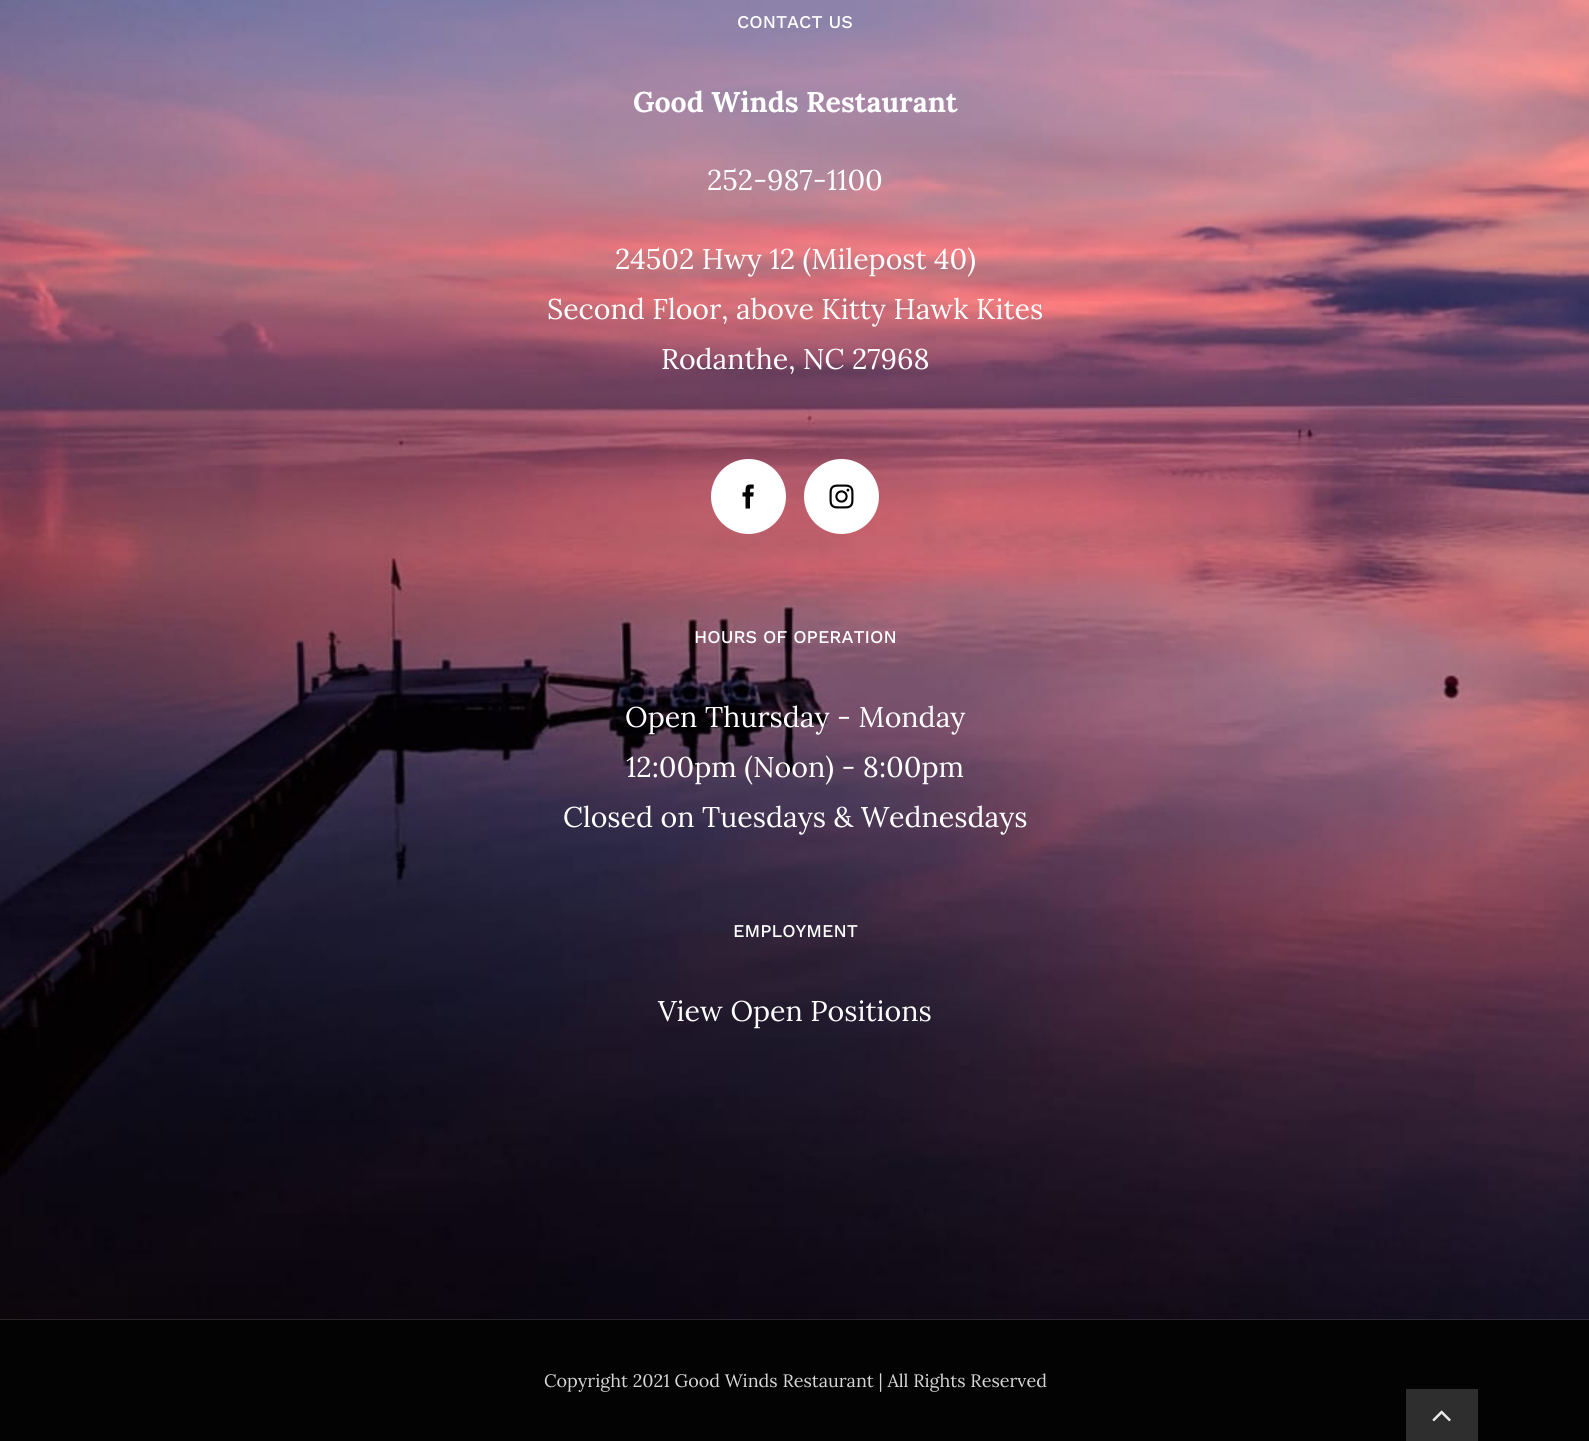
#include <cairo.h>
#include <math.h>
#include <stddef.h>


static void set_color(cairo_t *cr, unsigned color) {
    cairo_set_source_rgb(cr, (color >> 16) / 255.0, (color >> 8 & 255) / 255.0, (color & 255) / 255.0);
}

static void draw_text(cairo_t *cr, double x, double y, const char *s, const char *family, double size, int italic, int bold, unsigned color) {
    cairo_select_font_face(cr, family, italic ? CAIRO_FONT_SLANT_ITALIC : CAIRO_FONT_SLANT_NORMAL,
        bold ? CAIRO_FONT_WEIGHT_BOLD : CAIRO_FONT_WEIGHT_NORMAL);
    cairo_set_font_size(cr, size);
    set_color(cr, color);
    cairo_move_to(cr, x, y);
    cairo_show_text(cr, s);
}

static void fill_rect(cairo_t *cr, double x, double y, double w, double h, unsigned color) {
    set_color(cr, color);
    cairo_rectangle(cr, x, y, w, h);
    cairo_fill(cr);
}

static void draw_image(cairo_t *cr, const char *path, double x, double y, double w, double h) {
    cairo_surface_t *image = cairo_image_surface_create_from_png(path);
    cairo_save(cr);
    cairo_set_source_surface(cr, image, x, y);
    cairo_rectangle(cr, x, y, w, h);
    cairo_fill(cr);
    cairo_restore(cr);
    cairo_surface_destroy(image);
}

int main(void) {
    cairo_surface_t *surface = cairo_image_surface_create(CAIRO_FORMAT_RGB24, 1589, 1441);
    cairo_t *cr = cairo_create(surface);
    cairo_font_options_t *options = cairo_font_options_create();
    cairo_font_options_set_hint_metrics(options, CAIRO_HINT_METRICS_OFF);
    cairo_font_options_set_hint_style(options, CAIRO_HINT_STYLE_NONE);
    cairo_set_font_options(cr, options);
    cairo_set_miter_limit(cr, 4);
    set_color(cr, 0xFFFFFF);
    cairo_paint(cr);
    draw_image(cr, "assets/img1.png", 0, 0, 1589, 1320);
    draw_text(cr, 737, 28, "CONTACT US", "Work Sans Medium", 18, 0, 0, 0xFFFFFF);
    draw_text(cr, 633, 112, "Good Winds Restaurant", "Lora", 28.5, 0, 1, 0xFFFFFF);
    draw_text(cr, 707, 190, "252-987-1100", "Lora", 28.5, 0, 0, 0xFFFFFF);
    draw_text(cr, 615, 269, "24502 Hwy 12 (Milepost 40)", "Lora", 28.5, 0, 0, 0xFFFFFF);
    draw_text(cr, 547, 319, "Second Floor, above Kitty Hawk Kites", "Lora", 28.5, 0, 0, 0xFFFFFF);
    draw_text(cr, 661, 369, "Rodanthe, NC 27968", "Lora", 28.5, 0, 0, 0xFFFFFF);
    cairo_new_path(cr);
    cairo_arc(cr, 748.5, 496.5, 36.5, 0, 2 * M_PI);
    cairo_fill_preserve(cr);
    cairo_stroke(cr);
    draw_image(cr, "assets/img2.png", 742, 484, 12, 25);
    cairo_arc(cr, 841.5, 496.5, 36.5, 0, 2 * M_PI);
    cairo_fill_preserve(cr);
    cairo_stroke(cr);
    draw_image(cr, "assets/img3.png", 829, 484, 25, 25);
    draw_text(cr, 694, 643, "HOURS OF OPERATION", "Work Sans Medium", 18, 0, 0, 0xFFFFFF);
    draw_text(cr, 625, 727, "Open Thursday - Monday", "Lora", 28.5, 0, 0, 0xFFFFFF);
    draw_text(cr, 626, 777, "12:00pm (Noon) - 8:00pm", "Lora", 28.5, 0, 0, 0xFFFFFF);
    draw_text(cr, 563, 827, "Closed on Tuesdays & Wednesdays", "Lora", 28.5, 0, 0, 0xFFFFFF);
    draw_text(cr, 733, 937, "EMPLOYMENT", "Work Sans Medium", 18, 0, 0, 0xFFFFFF);
    draw_text(cr, 658, 1021, "View Open Positions", "Lora", 28.5, 0, 0, 0xFFFFFF);
    fill_rect(cr, 0, 1320, 1589, 121, 0x030303);
    draw_text(cr, 544, 1387, "Copyright 2021 Good Winds Restaurant | All Rights Reserved", "Lora", 18, 0, 0, 0xD6D6D6);
    fill_rect(cr, 1406, 1389, 72, 52, 0x2E2E2E);
    draw_image(cr, "assets/img4.png", 1432, 1410, 19, 12);
    cairo_surface_write_to_png(surface, "output.png");
    cairo_font_options_destroy(options);
    cairo_destroy(cr);
    cairo_surface_destroy(surface);
    return 0;
}
